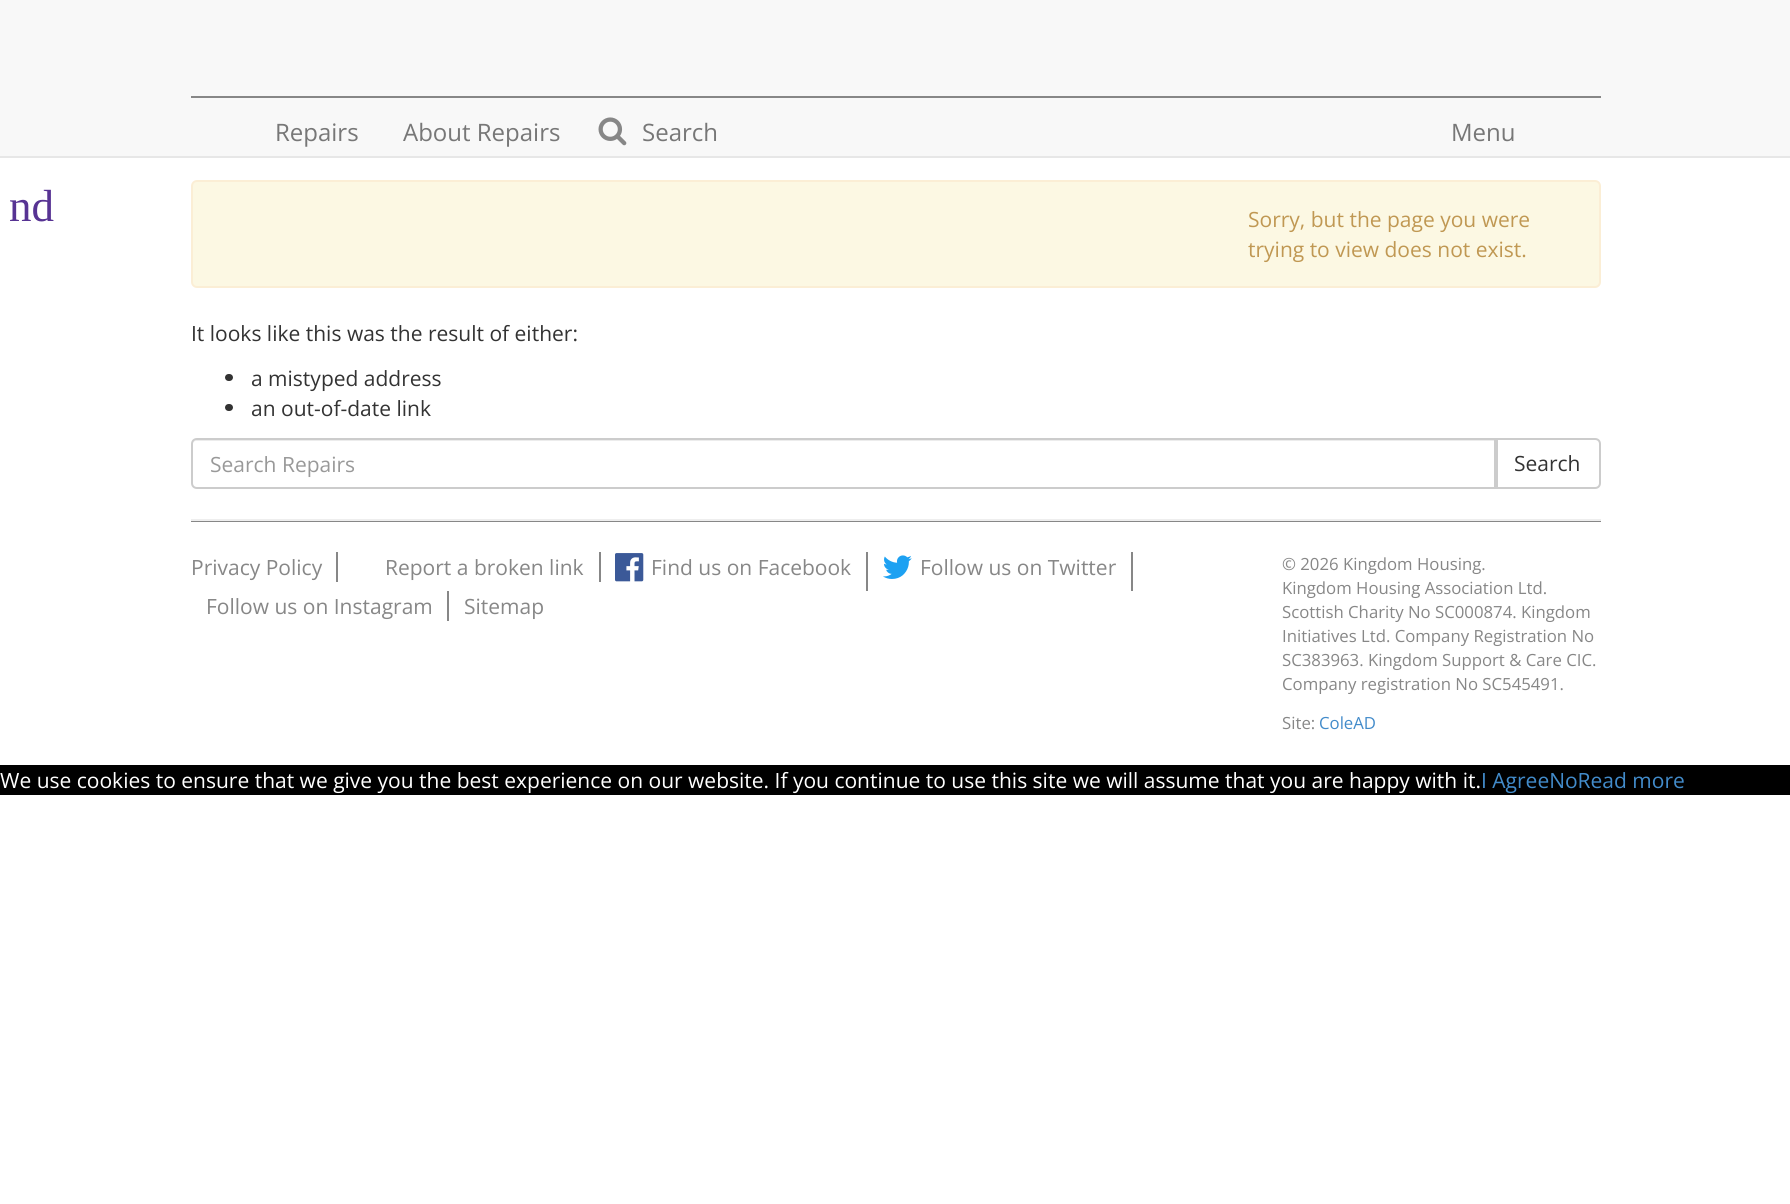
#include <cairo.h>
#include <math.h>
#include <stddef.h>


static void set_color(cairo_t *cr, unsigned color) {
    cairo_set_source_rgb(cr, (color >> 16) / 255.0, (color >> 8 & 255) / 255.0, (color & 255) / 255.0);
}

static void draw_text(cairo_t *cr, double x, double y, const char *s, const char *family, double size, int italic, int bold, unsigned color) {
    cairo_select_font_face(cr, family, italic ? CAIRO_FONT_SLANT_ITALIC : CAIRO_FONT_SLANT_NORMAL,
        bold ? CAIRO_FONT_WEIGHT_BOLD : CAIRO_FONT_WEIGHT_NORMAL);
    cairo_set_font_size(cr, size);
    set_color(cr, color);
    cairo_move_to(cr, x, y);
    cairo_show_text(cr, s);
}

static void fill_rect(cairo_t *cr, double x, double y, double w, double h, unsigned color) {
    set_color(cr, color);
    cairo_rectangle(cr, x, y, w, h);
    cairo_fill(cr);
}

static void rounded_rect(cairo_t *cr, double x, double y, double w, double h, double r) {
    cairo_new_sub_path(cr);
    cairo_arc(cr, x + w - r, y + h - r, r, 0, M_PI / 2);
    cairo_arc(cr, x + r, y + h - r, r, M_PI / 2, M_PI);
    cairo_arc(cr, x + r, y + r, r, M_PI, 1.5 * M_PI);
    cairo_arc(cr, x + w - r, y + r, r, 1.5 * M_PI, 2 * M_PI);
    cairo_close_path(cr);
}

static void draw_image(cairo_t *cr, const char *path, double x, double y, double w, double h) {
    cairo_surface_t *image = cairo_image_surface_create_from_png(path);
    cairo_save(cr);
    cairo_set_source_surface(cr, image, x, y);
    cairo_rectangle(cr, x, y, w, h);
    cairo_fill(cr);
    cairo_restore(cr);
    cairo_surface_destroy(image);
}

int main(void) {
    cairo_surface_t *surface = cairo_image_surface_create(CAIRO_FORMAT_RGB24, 1790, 1204);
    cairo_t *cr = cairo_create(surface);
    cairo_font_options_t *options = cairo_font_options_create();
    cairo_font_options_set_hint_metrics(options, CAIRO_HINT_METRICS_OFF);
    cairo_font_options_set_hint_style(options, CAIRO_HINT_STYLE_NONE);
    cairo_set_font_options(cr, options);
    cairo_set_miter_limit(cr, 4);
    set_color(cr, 0xFFFFFF);
    cairo_paint(cr);
    fill_rect(cr, 0, 0, 1790, 156, 0xF8F8F8);
    fill_rect(cr, 0, 156, 1790, 2, 0xE7E7E7);
    fill_rect(cr, 191, 96, 1410, 2, 0x878787);
    draw_text(cr, 275, 141, "Repairs", "Open Sans", 24, 0, 0, 0x777777);
    draw_text(cr, 403, 141, "About Repairs", "Open Sans", 24, 0, 0, 0x777777);
    draw_image(cr, "assets/img1.png", 598, 117, 29, 29);
    draw_text(cr, 642, 141, "Search", "Open Sans", 24, 0, 0, 0x777777);
    draw_text(cr, 1451, 141, "Menu", "Open Sans", 24, 0, 0, 0x777777);
    draw_text(cr, 9, 221, "nd", "Liberation Serif", 45, 0, 0, 0x573393);
    set_color(cr, 0xFCF8E3);
    rounded_rect(cr, 192, 181, 1408, 106, 5);
    cairo_fill_preserve(cr);
    set_color(cr, 0xFBEED5);
    cairo_stroke(cr);
    draw_text(cr, 1248, 227, "Sorry, but the page you were", "Open Sans", 21, 0, 0, 0xC09853);
    draw_text(cr, 1248, 257, "trying to view does not exist.", "Open Sans", 21, 0, 0, 0xC09853);
    draw_text(cr, 191, 341, "It looks like this was the result of either:", "Open Sans", 21, 0, 0, 0x333333);
    rounded_rect(cr, 225, 374, 8, 7, 3.5);
    cairo_fill(cr);
    draw_text(cr, 251, 386, "a mistyped address", "Open Sans", 21, 0, 0, 0x333333);
    rounded_rect(cr, 225, 404, 8, 7, 3.5);
    cairo_fill(cr);
    draw_text(cr, 251, 416, "an out-of-date link", "Open Sans", 21, 0, 0, 0x333333);
    set_color(cr, 0xECECEC);
    cairo_new_path(cr);
    cairo_move_to(cr, 196, 441);
    cairo_line_to(cr, 1494, 441);
    cairo_line_to(cr, 1494, 440);
    cairo_line_to(cr, 197, 440);
    cairo_curve_to(cr, 194, 440, 192, 443, 192, 446);
    cairo_curve_to(cr, 192, 443, 194, 441, 196, 441);
    cairo_close_path(cr);
    cairo_fill(cr);
    cairo_new_path(cr);
    cairo_move_to(cr, 197, 439);
    cairo_line_to(cr, 1495, 439);
    cairo_line_to(cr, 1495, 488);
    cairo_line_to(cr, 197, 488);
    cairo_curve_to(cr, 194, 488, 192, 486, 192, 483);
    cairo_line_to(cr, 192, 444);
    cairo_curve_to(cr, 192, 441, 194, 439, 197, 439);
    cairo_close_path(cr);
    set_color(cr, 0xCCCCCC);
    cairo_stroke(cr);
    draw_text(cr, 210, 472, "Search Repairs", "Open Sans", 21, 0, 0, 0x999999);
    cairo_new_path(cr);
    cairo_move_to(cr, 1497, 439);
    cairo_line_to(cr, 1595, 439);
    cairo_curve_to(cr, 1598, 439, 1600, 441, 1600, 444);
    cairo_line_to(cr, 1600, 483);
    cairo_curve_to(cr, 1600, 486, 1598, 488, 1595, 488);
    cairo_line_to(cr, 1497, 488);
    cairo_close_path(cr);
    set_color(cr, 0xCCCCCC);
    cairo_stroke(cr);
    draw_text(cr, 1514, 471, "Search", "Open Sans", 21, 0, 0, 0x333333);
    fill_rect(cr, 191, 521, 1410, 1, 0x878787);
    fill_rect(cr, 191, 519, 1410, 2, 0xEEEEEE);
    fill_rect(cr, 336, 552, 2, 30, 0x878787);
    draw_text(cr, 191, 575, "Privacy Policy", "Open Sans", 21, 0, 0, 0x878787);
    fill_rect(cr, 599, 552, 2, 30, 0x878787);
    draw_text(cr, 385, 575, "Report a broken link", "Open Sans", 21, 0, 0, 0x878787);
    fill_rect(cr, 866, 552, 2, 39, 0x878787);
    draw_image(cr, "assets/img2.png", 615, 553, 29, 29);
    draw_text(cr, 651, 575, "Find us on Facebook", "Open Sans", 21, 0, 0, 0x878787);
    fill_rect(cr, 1131, 552, 2, 39, 0x878787);
    draw_image(cr, "assets/img3.png", 883, 555, 29, 24);
    draw_text(cr, 920, 575, "Follow us on Twitter", "Open Sans", 21, 0, 0, 0x878787);
    fill_rect(cr, 447, 591, 2, 30, 0x878787);
    draw_text(cr, 206, 614, "Follow us on Instagram", "Open Sans", 21, 0, 0, 0x878787);
    draw_text(cr, 464, 614, "Sitemap", "Open Sans", 21, 0, 0, 0x878787);
    draw_text(cr, 1282, 570, "© 2026 Kingdom Housing.", "Open Sans", 16.75, 0, 0, 0x878787);
    draw_text(cr, 1282, 594, "Kingdom Housing Association Ltd.", "Open Sans", 16.75, 0, 0, 0x878787);
    draw_text(cr, 1282, 618, "Scottish Charity No SC000874. Kingdom", "Open Sans", 16.75, 0, 0, 0x878787);
    draw_text(cr, 1282, 642, "Initiatives Ltd. Company Registration No", "Open Sans", 16.75, 0, 0, 0x878787);
    draw_text(cr, 1282, 666, "SC383963. Kingdom Support & Care CIC.", "Open Sans", 16.75, 0, 0, 0x878787);
    draw_text(cr, 1282, 690, "Company registration No SC545491.", "Open Sans", 16.75, 0, 0, 0x878787);
    draw_text(cr, 1282, 729, "Site:", "Open Sans", 16.75, 0, 0, 0x878787);
    draw_text(cr, 1319, 729, "ColeAD", "Open Sans", 16.75, 0, 0, 0x428BCA);
    fill_rect(cr, 0, 765, 1790, 30, 0x000000);
    draw_text(cr, 0, 788, "We use cookies to ensure that we give you the best experience on our website. If you continue to use this site we will assume that you are happy with it.", "Open Sans", 21, 0, 0, 0xFFFFFF);
    draw_text(cr, 1481, 788, "I AgreeNoRead more", "Open Sans", 21, 0, 0, 0x428BCA);
    cairo_surface_write_to_png(surface, "output.png");
    cairo_font_options_destroy(options);
    cairo_destroy(cr);
    cairo_surface_destroy(surface);
    return 0;
}
